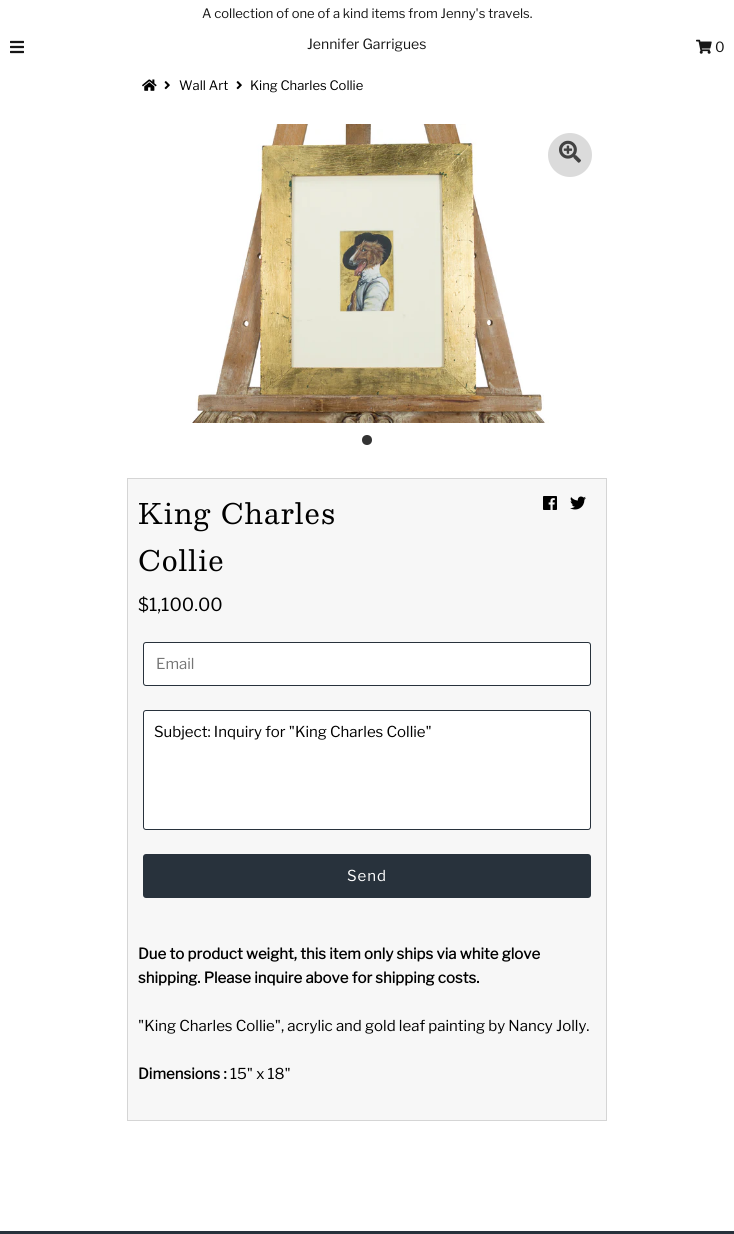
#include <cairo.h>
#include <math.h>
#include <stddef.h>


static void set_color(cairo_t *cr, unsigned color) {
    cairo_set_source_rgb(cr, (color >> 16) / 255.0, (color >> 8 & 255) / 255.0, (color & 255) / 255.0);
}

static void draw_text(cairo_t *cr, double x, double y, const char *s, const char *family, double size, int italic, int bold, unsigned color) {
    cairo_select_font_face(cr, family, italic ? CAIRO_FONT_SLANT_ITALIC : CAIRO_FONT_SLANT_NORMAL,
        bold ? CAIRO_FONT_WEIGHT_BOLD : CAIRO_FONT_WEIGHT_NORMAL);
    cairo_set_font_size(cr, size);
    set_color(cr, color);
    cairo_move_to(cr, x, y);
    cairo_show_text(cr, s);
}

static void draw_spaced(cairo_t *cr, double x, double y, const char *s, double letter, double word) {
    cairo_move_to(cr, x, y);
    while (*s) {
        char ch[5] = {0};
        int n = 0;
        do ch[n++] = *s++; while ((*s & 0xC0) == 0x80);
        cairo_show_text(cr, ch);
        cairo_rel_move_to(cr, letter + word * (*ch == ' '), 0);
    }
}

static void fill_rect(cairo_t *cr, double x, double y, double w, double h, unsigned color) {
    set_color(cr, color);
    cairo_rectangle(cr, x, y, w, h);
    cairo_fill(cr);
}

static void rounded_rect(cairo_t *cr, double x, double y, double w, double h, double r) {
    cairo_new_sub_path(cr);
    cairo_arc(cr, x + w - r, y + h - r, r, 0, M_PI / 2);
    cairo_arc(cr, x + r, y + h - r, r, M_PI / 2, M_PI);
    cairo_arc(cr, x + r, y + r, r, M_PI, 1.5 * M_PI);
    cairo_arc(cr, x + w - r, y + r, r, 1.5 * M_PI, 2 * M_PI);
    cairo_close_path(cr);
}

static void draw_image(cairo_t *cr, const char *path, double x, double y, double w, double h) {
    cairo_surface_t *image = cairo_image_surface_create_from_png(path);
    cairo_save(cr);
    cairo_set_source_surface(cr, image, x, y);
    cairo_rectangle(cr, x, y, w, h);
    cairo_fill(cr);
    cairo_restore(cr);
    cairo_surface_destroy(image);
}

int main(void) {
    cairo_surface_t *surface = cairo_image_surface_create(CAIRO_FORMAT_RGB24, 734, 1234);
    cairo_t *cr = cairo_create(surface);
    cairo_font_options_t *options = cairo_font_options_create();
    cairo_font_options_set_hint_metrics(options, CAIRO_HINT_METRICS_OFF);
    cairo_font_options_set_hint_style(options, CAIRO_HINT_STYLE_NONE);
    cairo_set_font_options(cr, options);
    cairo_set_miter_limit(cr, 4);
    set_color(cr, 0xFFFFFF);
    cairo_paint(cr);
    draw_text(cr, 202, 18, "A collection of one of a kind items from Jenny's travels.", "Libre Franklin", 13, 0, 0, 0x161616);
    draw_image(cr, "assets/img1.png", 10, 40, 14, 14);
    draw_text(cr, 307, 49, "Jennifer Garrigues", "Libre Franklin", 14, 0, 0, 0x161616);
    draw_image(cr, "assets/img2.png", 696, 39, 16, 15);
    draw_text(cr, 715, 52, "0", "Libre Franklin", 14, 0, 0, 0x161616);
    draw_image(cr, "assets/img3.png", 142, 79, 15, 12);
    draw_image(cr, "assets/img4.png", 164, 81, 6, 9);
    draw_text(cr, 179, 90, "Wall Art", "Libre Franklin", 13, 0, 0, 0x000000);
    draw_image(cr, "assets/img4.png", 236, 81, 6, 9);
    draw_text(cr, 250, 90, "King Charles Collie", "Libre Franklin", 13, 0, 0, 0x000000);
    draw_image(cr, "assets/img5.png", 190, 124, 359, 299);
    set_color(cr, 0xDBDBDB);
    cairo_arc(cr, 570, 155, 22, 0, 2 * M_PI);
    cairo_fill(cr);
    draw_image(cr, "assets/img6.png", 559, 140, 22, 23);
    set_color(cr, 0x333333);
    cairo_arc(cr, 367, 440, 5, 0, 2 * M_PI);
    cairo_fill(cr);
    set_color(cr, 0xF7F7F7);
    cairo_rectangle(cr, 127.5, 478.5, 479, 642);
    cairo_fill_preserve(cr);
    set_color(cr, 0xD5D5D5);
    cairo_set_line_width(cr, 1);
    cairo_stroke(cr);
    cairo_select_font_face(cr, "Besley", CAIRO_FONT_SLANT_NORMAL, CAIRO_FONT_WEIGHT_NORMAL);
    cairo_set_font_size(cr, 28);
    set_color(cr, 0x000000);
    draw_spaced(cr, 138, 524, "King Charles", 1, 0);
    draw_spaced(cr, 138, 571, "Collie", 1, 0);
    draw_image(cr, "assets/img7.png", 543, 496, 14, 14);
    draw_image(cr, "assets/img8.png", 570, 496, 16, 14);
    draw_text(cr, 138, 611, "$1,100.00", "Libre Franklin", 18, 0, 0, 0x000000);
    set_color(cr, 0xFFFFFF);
    rounded_rect(cr, 143.5, 642.5, 447, 43, 2.5);
    cairo_fill_preserve(cr);
    set_color(cr, 0x28323C);
    cairo_stroke(cr);
    draw_text(cr, 156, 669, "Email", "Libre Franklin", 15, 0, 0, 0x757575);
    set_color(cr, 0xFFFFFF);
    rounded_rect(cr, 143.5, 710.5, 447, 119, 2.5);
    cairo_fill_preserve(cr);
    set_color(cr, 0x28323C);
    cairo_stroke(cr);
    draw_text(cr, 154, 737, "Subject: Inquiry for \"King Charles Collie\"", "Libre Franklin", 15, 0, 0, 0x000000);
    set_color(cr, 0x28323C);
    rounded_rect(cr, 143, 854, 448, 44, 3);
    cairo_fill(cr);
    set_color(cr, 0xFFFFFF);
    draw_spaced(cr, 347, 881, "Send", 1, 0);
    draw_text(cr, 138, 959, "Due to product weight, this item only ships via white glove", "Libre Franklin", 15, 0, 1, 0x000000);
    draw_text(cr, 138, 983, "shipping. Please inquire above for shipping costs.", "Libre Franklin", 15, 0, 1, 0x000000);
    draw_text(cr, 138, 1031, "\"King Charles Collie\", acrylic and gold leaf painting by Nancy Jolly.", "Libre Franklin", 15, 0, 0, 0x000000);
    draw_text(cr, 138, 1079, "Dimensions :", "Libre Franklin", 15, 0, 1, 0x000000);
    draw_text(cr, 230, 1079, "15\" x 18\"", "Libre Franklin", 15, 0, 0, 0x000000);
    fill_rect(cr, 0, 1231, 734, 3, 0x28323C);
    cairo_surface_write_to_png(surface, "output.png");
    cairo_font_options_destroy(options);
    cairo_destroy(cr);
    cairo_surface_destroy(surface);
    return 0;
}
